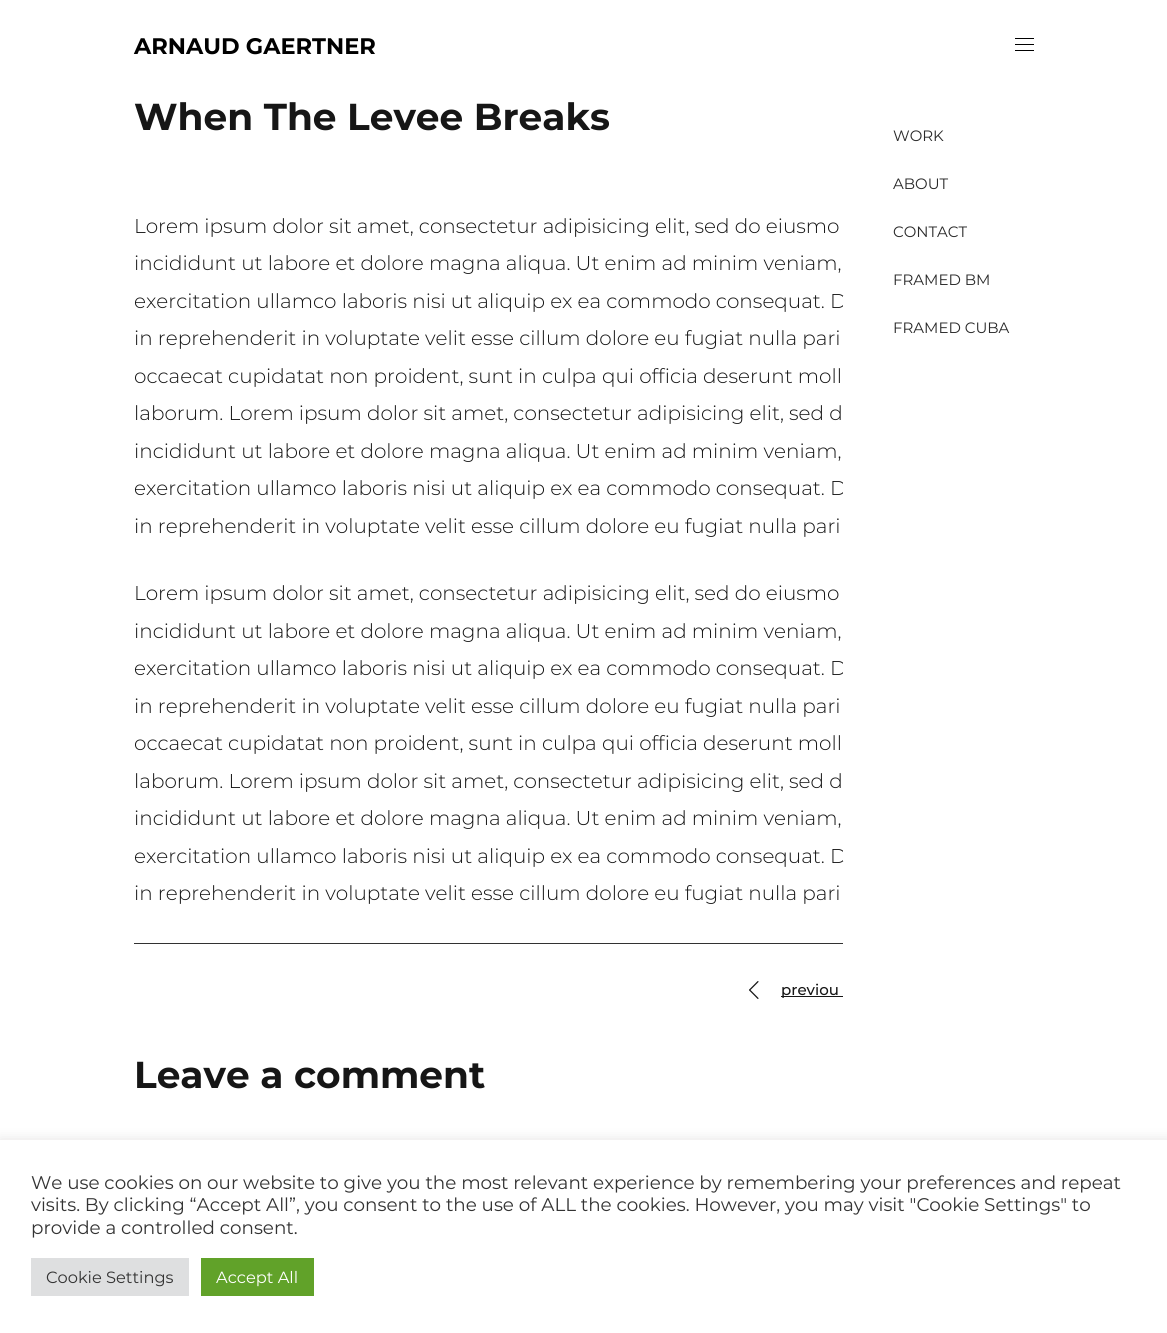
#include <cairo.h>
#include <math.h>
#include <stddef.h>


static void set_color(cairo_t *cr, unsigned color) {
    cairo_set_source_rgb(cr, (color >> 16) / 255.0, (color >> 8 & 255) / 255.0, (color & 255) / 255.0);
}

static void draw_text(cairo_t *cr, double x, double y, const char *s, const char *family, double size, int italic, int bold, unsigned color) {
    cairo_select_font_face(cr, family, italic ? CAIRO_FONT_SLANT_ITALIC : CAIRO_FONT_SLANT_NORMAL,
        bold ? CAIRO_FONT_WEIGHT_BOLD : CAIRO_FONT_WEIGHT_NORMAL);
    cairo_set_font_size(cr, size);
    set_color(cr, color);
    cairo_move_to(cr, x, y);
    cairo_show_text(cr, s);
}

static void fill_rect(cairo_t *cr, double x, double y, double w, double h, unsigned color) {
    set_color(cr, color);
    cairo_rectangle(cr, x, y, w, h);
    cairo_fill(cr);
}

static void rounded_rect(cairo_t *cr, double x, double y, double w, double h, double r) {
    cairo_new_sub_path(cr);
    cairo_arc(cr, x + w - r, y + h - r, r, 0, M_PI / 2);
    cairo_arc(cr, x + r, y + h - r, r, M_PI / 2, M_PI);
    cairo_arc(cr, x + r, y + r, r, M_PI, 1.5 * M_PI);
    cairo_arc(cr, x + w - r, y + r, r, 1.5 * M_PI, 2 * M_PI);
    cairo_close_path(cr);
}

static void draw_shadow(cairo_t *cr, double x, double y, double w, double h, double r, double blur, double alpha) {
    cairo_push_group_with_content(cr, CAIRO_CONTENT_ALPHA);
    cairo_set_operator(cr, CAIRO_OPERATOR_SOURCE);
    for (int i = 15; i >= -15 && fmin(w, h) + blur * i / 3 > 0; i -= 2) {
        double e = blur * i / 6;
        cairo_set_source_rgba(cr, 0, 0, 0, alpha * erfc((i - 1) / 8.5) / 2);
        rounded_rect(cr, x - e, y - e, w + 2 * e, h + 2 * e, fmax(0, fmin(r + e + blur * .6, fmin(w, h) / 2 + e)));
        cairo_fill(cr);
    }
    cairo_pattern_t *soft = cairo_pop_group(cr);
    cairo_mask(cr, soft);
    cairo_pattern_destroy(soft);
}

static void draw_image(cairo_t *cr, const char *path, double x, double y, double w, double h) {
    cairo_surface_t *image = cairo_image_surface_create_from_png(path);
    cairo_save(cr);
    cairo_set_source_surface(cr, image, x, y);
    cairo_rectangle(cr, x, y, w, h);
    cairo_fill(cr);
    cairo_restore(cr);
    cairo_surface_destroy(image);
}

int main(void) {
    cairo_surface_t *surface = cairo_image_surface_create(CAIRO_FORMAT_RGB24, 1167, 1333);
    cairo_t *cr = cairo_create(surface);
    cairo_font_options_t *options = cairo_font_options_create();
    cairo_font_options_set_hint_metrics(options, CAIRO_HINT_METRICS_OFF);
    cairo_font_options_set_hint_style(options, CAIRO_HINT_STYLE_NONE);
    cairo_set_font_options(cr, options);
    cairo_set_miter_limit(cr, 4);
    set_color(cr, 0xFFFFFF);
    cairo_paint(cr);
    draw_text(cr, 134, 54, "ARNAUD GAERTNER", "Montserrat", 22.5, 0, 1, 0x000000);
    fill_rect(cr, 1015, 38, 19, 1, 0x000000);
    fill_rect(cr, 1015, 44, 19, 1, 0x000000);
    fill_rect(cr, 1015, 50, 19, 1, 0x000000);
    draw_text(cr, 134, 308, "exercitation ullamco laboris nisi ut aliquip ex ea commodo consequat. D", "Montserrat Light", 20, 0, 0, 0x161616);
    draw_text(cr, 134, 495, "exercitation ullamco laboris nisi ut aliquip ex ea commodo consequat. D", "Montserrat Light", 20, 0, 0, 0x161616);
    draw_text(cr, 134, 675, "exercitation ullamco laboris nisi ut aliquip ex ea commodo consequat. D", "Montserrat Light", 20, 0, 0, 0x161616);
    draw_text(cr, 134, 863, "exercitation ullamco laboris nisi ut aliquip ex ea commodo consequat. D", "Montserrat Light", 20, 0, 0, 0x161616);
    fill_rect(cr, 843, 296, 3, 565, 0xFFFFFF);
    draw_text(cr, 893, 141, "WORK", "Montserrat", 15, 0, 0, 0x292929);
    draw_text(cr, 893, 189, "ABOUT", "Montserrat", 15, 0, 0, 0x292929);
    draw_text(cr, 893, 237, "CONTACT", "Montserrat", 15, 0, 0, 0x292929);
    draw_text(cr, 893, 285, "FRAMED BM", "Montserrat", 15, 0, 0, 0x292929);
    draw_text(cr, 893, 333, "FRAMED CUBA", "Montserrat", 15, 0, 0, 0x292929);
    draw_text(cr, 134, 130, "When The Levee Breaks", "Montserrat", 37.5, 0, 1, 0x161616);
    draw_text(cr, 134, 233, "Lorem ipsum dolor sit amet, consectetur adipisicing elit, sed do eiusmo", "Montserrat Light", 20, 0, 0, 0x161616);
    draw_text(cr, 134, 270, "incididunt ut labore et dolore magna aliqua. Ut enim ad minim veniam,", "Montserrat Light", 20, 0, 0, 0x161616);
    draw_text(cr, 134, 345, "in reprehenderit in voluptate velit esse cillum dolore eu fugiat nulla pari", "Montserrat Light", 20, 0, 0, 0x161616);
    draw_text(cr, 134, 383, "occaecat cupidatat non proident, sunt in culpa qui officia deserunt moll", "Montserrat Light", 20, 0, 0, 0x161616);
    draw_text(cr, 134, 420, "laborum. Lorem ipsum dolor sit amet, consectetur adipisicing elit, sed d", "Montserrat Light", 20, 0, 0, 0x161616);
    draw_text(cr, 134, 458, "incididunt ut labore et dolore magna aliqua. Ut enim ad minim veniam,", "Montserrat Light", 20, 0, 0, 0x161616);
    draw_text(cr, 134, 533, "in reprehenderit in voluptate velit esse cillum dolore eu fugiat nulla pari", "Montserrat Light", 20, 0, 0, 0x161616);
    draw_text(cr, 134, 600, "Lorem ipsum dolor sit amet, consectetur adipisicing elit, sed do eiusmo", "Montserrat Light", 20, 0, 0, 0x161616);
    draw_text(cr, 134, 638, "incididunt ut labore et dolore magna aliqua. Ut enim ad minim veniam,", "Montserrat Light", 20, 0, 0, 0x161616);
    draw_text(cr, 134, 713, "in reprehenderit in voluptate velit esse cillum dolore eu fugiat nulla pari", "Montserrat Light", 20, 0, 0, 0x161616);
    draw_text(cr, 134, 750, "occaecat cupidatat non proident, sunt in culpa qui officia deserunt moll", "Montserrat Light", 20, 0, 0, 0x161616);
    draw_text(cr, 134, 788, "laborum. Lorem ipsum dolor sit amet, consectetur adipisicing elit, sed d", "Montserrat Light", 20, 0, 0, 0x161616);
    draw_text(cr, 134, 825, "incididunt ut labore et dolore magna aliqua. Ut enim ad minim veniam,", "Montserrat Light", 20, 0, 0, 0x161616);
    draw_text(cr, 134, 900, "in reprehenderit in voluptate velit esse cillum dolore eu fugiat nulla pari", "Montserrat Light", 20, 0, 0, 0x161616);
    fill_rect(cr, 134, 943, 709, 1, 0x323232);
    draw_image(cr, "assets/img1.png", 749, 981, 10, 18);
    fill_rect(cr, 781, 996, 62, 1, 0x161616);
    draw_text(cr, 781, 995, "previou", "Montserrat Medium", 15, 0, 0, 0x161616);
    draw_text(cr, 134, 1088, "Leave a comment", "Montserrat", 37.5, 0, 1, 0x161616);
    set_color(cr, 0xACABAB);
    draw_shadow(cr, 0, 1139, 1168, 194, 0, 6, 0.3);
    fill_rect(cr, 0, 1140, 1167, 193, 0xFFFFFF);
    draw_text(cr, 31, 1189, "We use cookies on our website to give you the most relevant experience by remembering your preferences and repeat", "Montserrat", 18.33, 0, 0, 0x333333);
    draw_text(cr, 31, 1211, "visits. By clicking “Accept All”, you consent to the use of ALL the cookies. However, you may visit \"Cookie Settings\" to", "Montserrat", 18.33, 0, 0, 0x333333);
    draw_text(cr, 31, 1234, "provide a controlled consent.", "Montserrat", 18.33, 0, 0, 0x333333);
    fill_rect(cr, 31, 1258, 158, 38, 0xDEDFE0);
    draw_text(cr, 46, 1283, "Cookie Settings", "Montserrat", 16.25, 0, 0, 0x333333);
    fill_rect(cr, 201, 1258, 113, 38, 0x61A229);
    draw_text(cr, 216, 1283, "Accept All", "Montserrat", 16.25, 0, 0, 0xFFFFFF);
    cairo_surface_write_to_png(surface, "output.png");
    cairo_font_options_destroy(options);
    cairo_destroy(cr);
    cairo_surface_destroy(surface);
    return 0;
}
